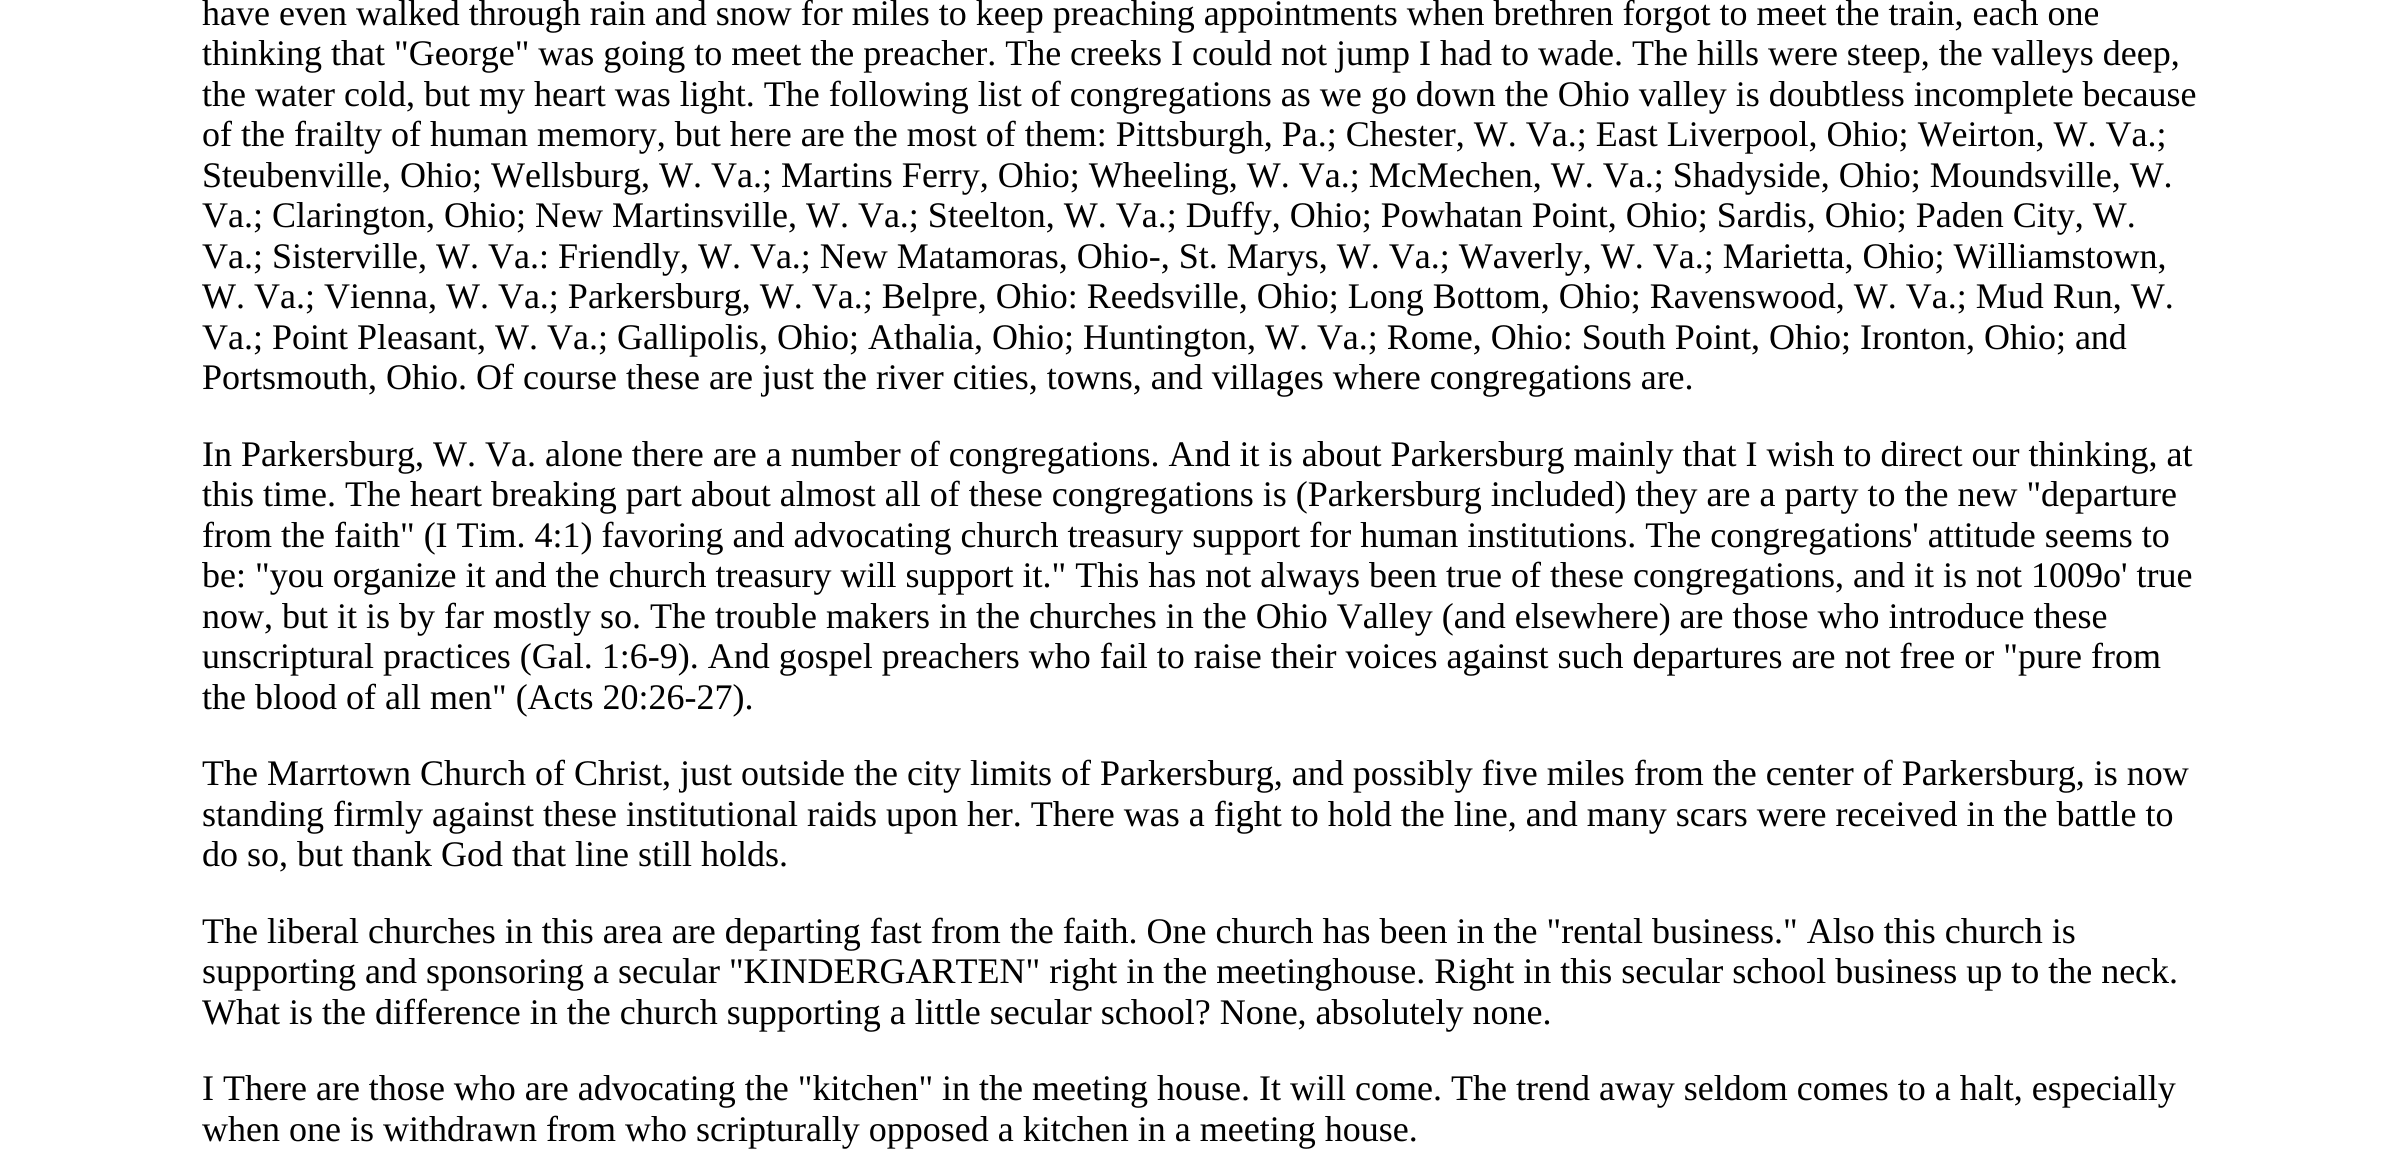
#include <cairo.h>
#include <math.h>
#include <stddef.h>


static void set_color(cairo_t *cr, unsigned color) {
    cairo_set_source_rgb(cr, (color >> 16) / 255.0, (color >> 8 & 255) / 255.0, (color & 255) / 255.0);
}

static void draw_text(cairo_t *cr, double x, double y, const char *s, const char *family, double size, int italic, int bold, unsigned color) {
    cairo_select_font_face(cr, family, italic ? CAIRO_FONT_SLANT_ITALIC : CAIRO_FONT_SLANT_NORMAL,
        bold ? CAIRO_FONT_WEIGHT_BOLD : CAIRO_FONT_WEIGHT_NORMAL);
    cairo_set_font_size(cr, size);
    set_color(cr, color);
    cairo_move_to(cr, x, y);
    cairo_show_text(cr, s);
}

int main(void) {
    cairo_surface_t *surface = cairo_image_surface_create(CAIRO_FORMAT_RGB24, 2400, 1166);
    cairo_t *cr = cairo_create(surface);
    cairo_font_options_t *options = cairo_font_options_create();
    cairo_font_options_set_hint_metrics(options, CAIRO_HINT_METRICS_OFF);
    cairo_font_options_set_hint_style(options, CAIRO_HINT_STYLE_NONE);
    cairo_set_font_options(cr, options);
    cairo_set_miter_limit(cr, 4);
    set_color(cr, 0xFFFFFF);
    cairo_paint(cr);
    draw_text(cr, 202, 25, "have even walked through rain and snow for miles to keep preaching appointments when brethren forgot to meet the train, each one", "Liberation Serif", 36, 0, 0, 0x000000);
    draw_text(cr, 202, 65, "thinking that \"George\" was going to meet the preacher. The creeks I could not jump I had to wade. The hills were steep, the valleys deep,", "Liberation Serif", 36, 0, 0, 0x000000);
    draw_text(cr, 202, 106, "the water cold, but my heart was light. The following list of congregations as we go down the Ohio valley is doubtless incomplete because", "Liberation Serif", 36, 0, 0, 0x000000);
    draw_text(cr, 202, 146, "of the frailty of human memory, but here are the most of them: Pittsburgh, Pa.; Chester, W. Va.; East Liverpool, Ohio; Weirton, W. Va.;", "Liberation Serif", 36, 0, 0, 0x000000);
    draw_text(cr, 202, 187, "Steubenville, Ohio; Wellsburg, W. Va.; Martins Ferry, Ohio; Wheeling, W. Va.; McMechen, W. Va.; Shadyside, Ohio; Moundsville, W.", "Liberation Serif", 36, 0, 0, 0x000000);
    draw_text(cr, 202, 227, "Va.; Clarington, Ohio; New Martinsville, W. Va.; Steelton, W. Va.; Duffy, Ohio; Powhatan Point, Ohio; Sardis, Ohio; Paden City, W.", "Liberation Serif", 36, 0, 0, 0x000000);
    draw_text(cr, 202, 268, "Va.; Sisterville, W. Va.: Friendly, W. Va.; New Matamoras, Ohio-, St. Marys, W. Va.; Waverly, W. Va.; Marietta, Ohio; Williamstown,", "Liberation Serif", 36, 0, 0, 0x000000);
    draw_text(cr, 202, 308, "W. Va.; Vienna, W. Va.; Parkersburg, W. Va.; Belpre, Ohio: Reedsville, Ohio; Long Bottom, Ohio; Ravenswood, W. Va.; Mud Run, W.", "Liberation Serif", 36, 0, 0, 0x000000);
    draw_text(cr, 202, 349, "Va.; Point Pleasant, W. Va.; Gallipolis, Ohio; Athalia, Ohio; Huntington, W. Va.; Rome, Ohio: South Point, Ohio; Ironton, Ohio; and", "Liberation Serif", 36, 0, 0, 0x000000);
    draw_text(cr, 202, 389, "Portsmouth, Ohio. Of course these are just the river cities, towns, and villages where congregations are.", "Liberation Serif", 36, 0, 0, 0x000000);
    draw_text(cr, 202, 466, "In Parkersburg, W. Va. alone there are a number of congregations. And it is about Parkersburg mainly that I wish to direct our thinking, at", "Liberation Serif", 36, 0, 0, 0x000000);
    draw_text(cr, 202, 506, "this time. The heart breaking part about almost all of these congregations is (Parkersburg included) they are a party to the new \"departure", "Liberation Serif", 36, 0, 0, 0x000000);
    draw_text(cr, 202, 547, "from the faith\" (I Tim. 4:1) favoring and advocating church treasury support for human institutions. The congregations' attitude seems to", "Liberation Serif", 36, 0, 0, 0x000000);
    draw_text(cr, 202, 587, "be: \"you organize it and the church treasury will support it.\" This has not always been true of these congregations, and it is not 1009o' true", "Liberation Serif", 36, 0, 0, 0x000000);
    draw_text(cr, 202, 628, "now, but it is by far mostly so. The trouble makers in the churches in the Ohio Valley (and elsewhere) are those who introduce these", "Liberation Serif", 36, 0, 0, 0x000000);
    draw_text(cr, 202, 668, "unscriptural practices (Gal. 1:6-9). And gospel preachers who fail to raise their voices against such departures are not free or \"pure from", "Liberation Serif", 36, 0, 0, 0x000000);
    draw_text(cr, 202, 709, "the blood of all men\" (Acts 20:26-27).", "Liberation Serif", 36, 0, 0, 0x000000);
    draw_text(cr, 202, 785, "The Marrtown Church of Christ, just outside the city limits of Parkersburg, and possibly five miles from the center of Parkersburg, is now", "Liberation Serif", 36, 0, 0, 0x000000);
    draw_text(cr, 202, 826, "standing firmly against these institutional raids upon her. There was a fight to hold the line, and many scars were received in the battle to", "Liberation Serif", 36, 0, 0, 0x000000);
    draw_text(cr, 202, 866, "do so, but thank God that line still holds.", "Liberation Serif", 36, 0, 0, 0x000000);
    draw_text(cr, 202, 943, "The liberal churches in this area are departing fast from the faith. One church has been in the \"rental business.\" Also this church is", "Liberation Serif", 36, 0, 0, 0x000000);
    draw_text(cr, 202, 983, "supporting and sponsoring a secular \"KINDERGARTEN\" right in the meetinghouse. Right in this secular school business up to the neck.", "Liberation Serif", 36, 0, 0, 0x000000);
    draw_text(cr, 202, 1024, "What is the difference in the church supporting a little secular school? None, absolutely none.", "Liberation Serif", 36, 0, 0, 0x000000);
    draw_text(cr, 202, 1100, "I There are those who are advocating the \"kitchen\" in the meeting house. It will come. The trend away seldom comes to a halt, especially", "Liberation Serif", 36, 0, 0, 0x000000);
    draw_text(cr, 202, 1141, "when one is withdrawn from who scripturally opposed a kitchen in a meeting house.", "Liberation Serif", 36, 0, 0, 0x000000);
    cairo_surface_write_to_png(surface, "output.png");
    cairo_font_options_destroy(options);
    cairo_destroy(cr);
    cairo_surface_destroy(surface);
    return 0;
}
